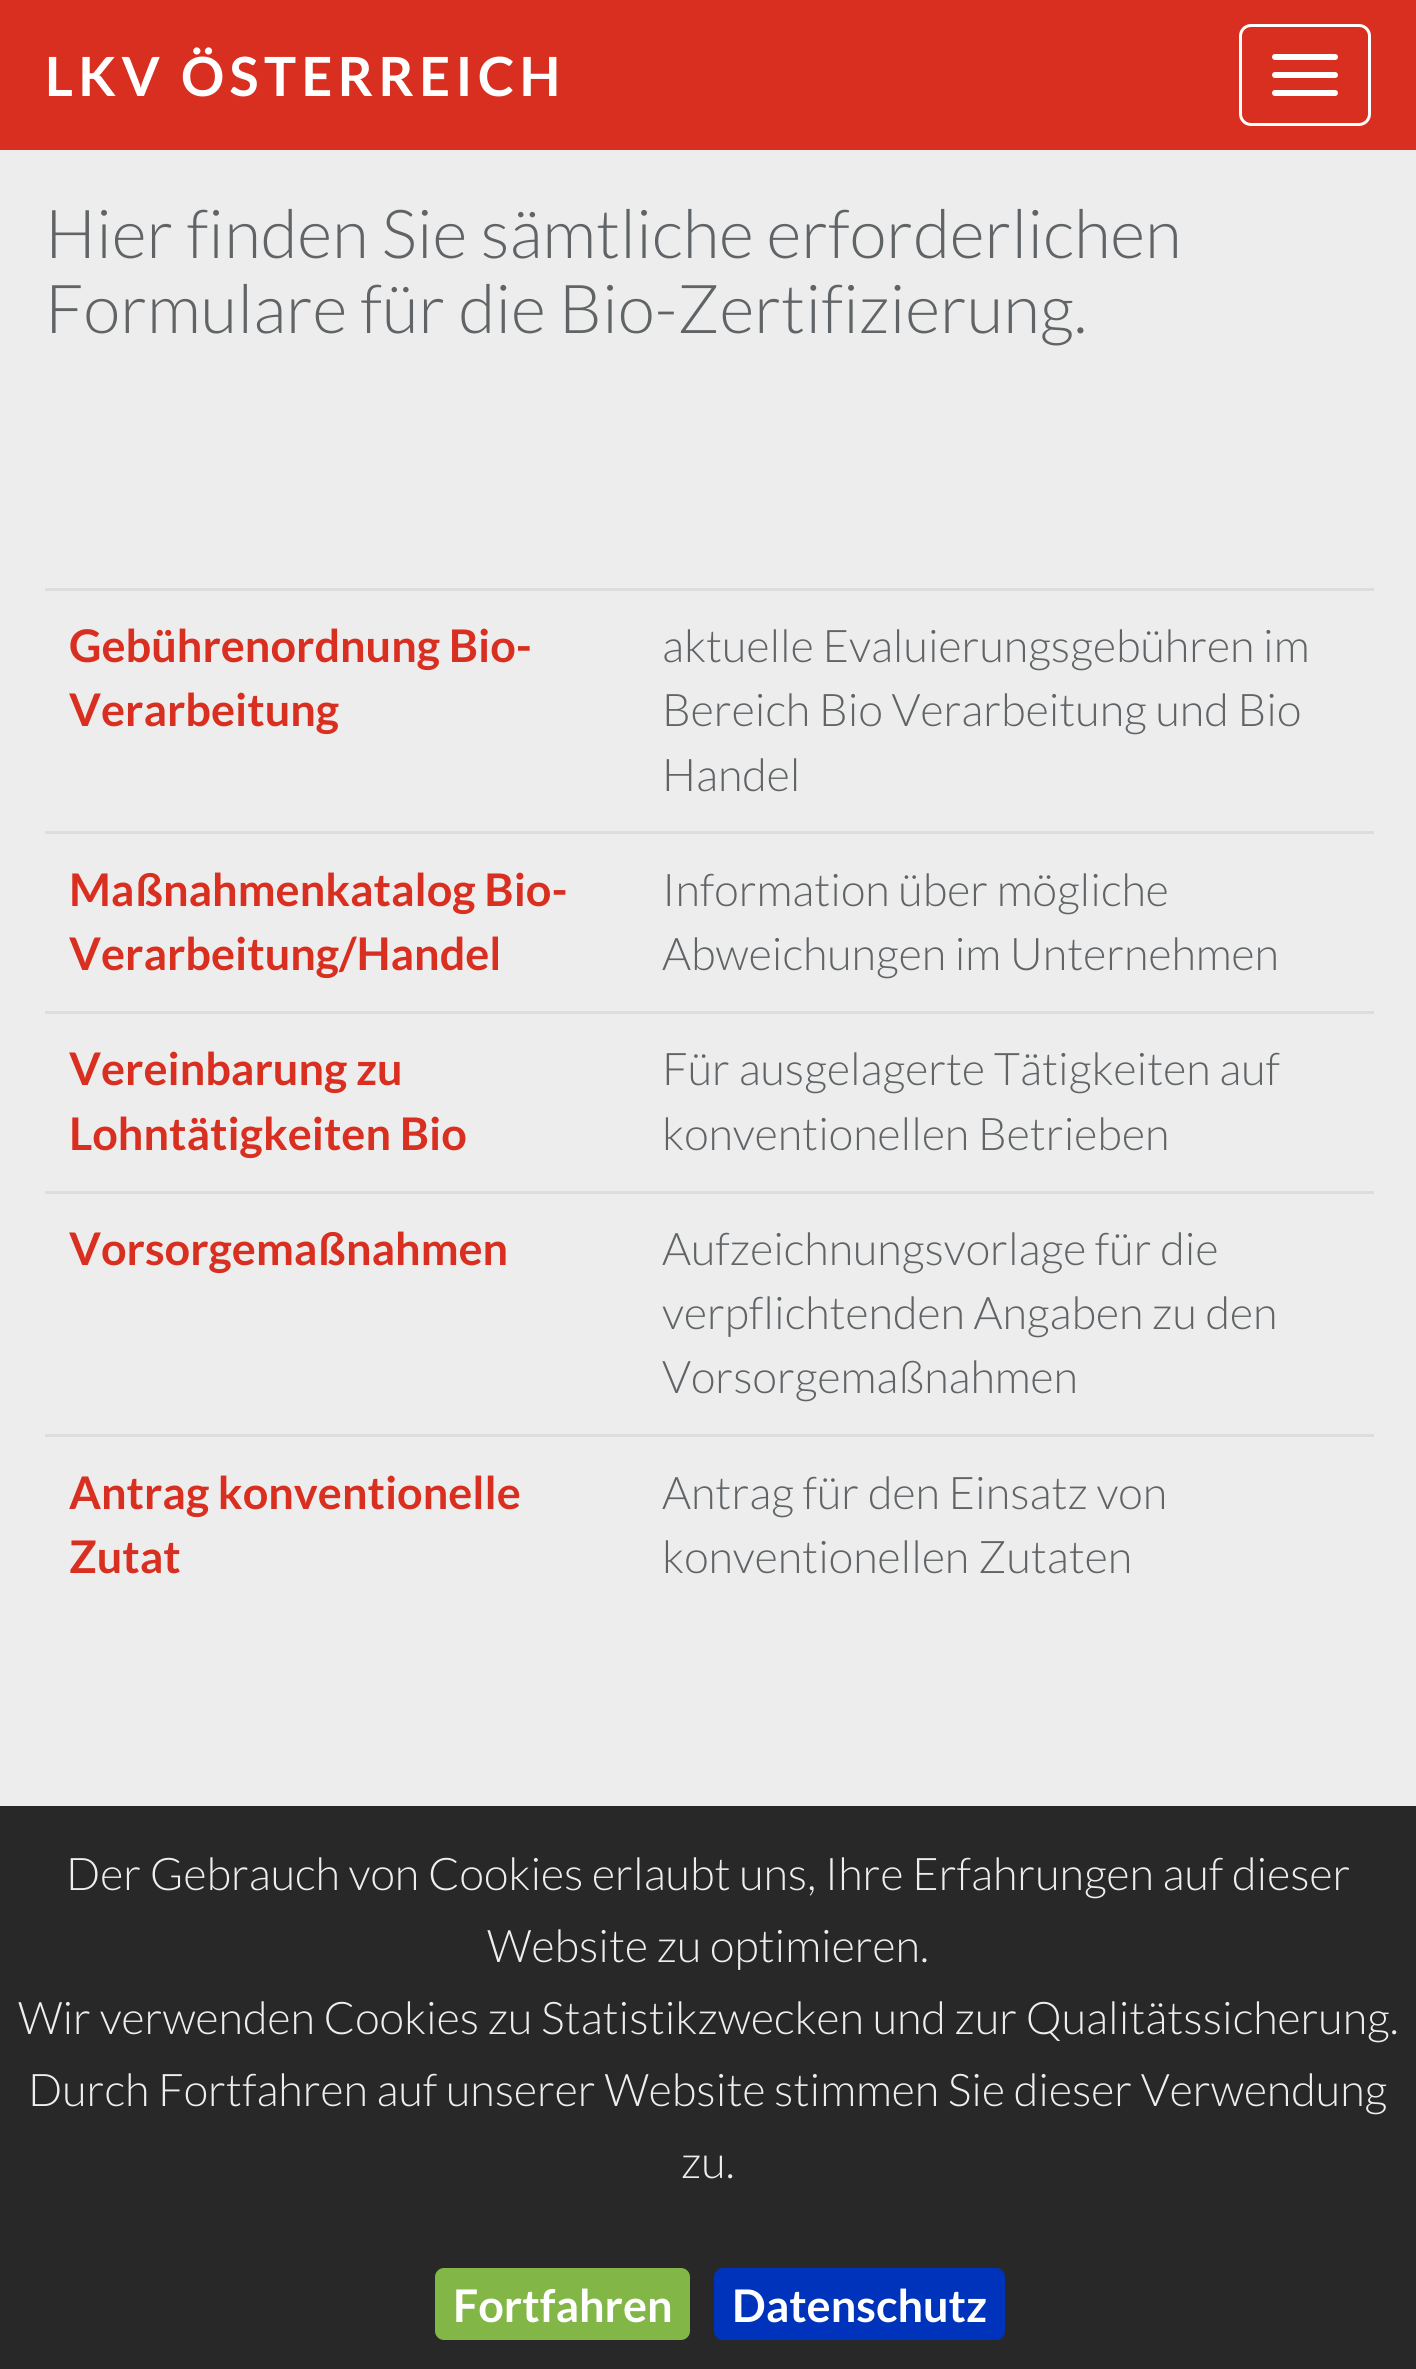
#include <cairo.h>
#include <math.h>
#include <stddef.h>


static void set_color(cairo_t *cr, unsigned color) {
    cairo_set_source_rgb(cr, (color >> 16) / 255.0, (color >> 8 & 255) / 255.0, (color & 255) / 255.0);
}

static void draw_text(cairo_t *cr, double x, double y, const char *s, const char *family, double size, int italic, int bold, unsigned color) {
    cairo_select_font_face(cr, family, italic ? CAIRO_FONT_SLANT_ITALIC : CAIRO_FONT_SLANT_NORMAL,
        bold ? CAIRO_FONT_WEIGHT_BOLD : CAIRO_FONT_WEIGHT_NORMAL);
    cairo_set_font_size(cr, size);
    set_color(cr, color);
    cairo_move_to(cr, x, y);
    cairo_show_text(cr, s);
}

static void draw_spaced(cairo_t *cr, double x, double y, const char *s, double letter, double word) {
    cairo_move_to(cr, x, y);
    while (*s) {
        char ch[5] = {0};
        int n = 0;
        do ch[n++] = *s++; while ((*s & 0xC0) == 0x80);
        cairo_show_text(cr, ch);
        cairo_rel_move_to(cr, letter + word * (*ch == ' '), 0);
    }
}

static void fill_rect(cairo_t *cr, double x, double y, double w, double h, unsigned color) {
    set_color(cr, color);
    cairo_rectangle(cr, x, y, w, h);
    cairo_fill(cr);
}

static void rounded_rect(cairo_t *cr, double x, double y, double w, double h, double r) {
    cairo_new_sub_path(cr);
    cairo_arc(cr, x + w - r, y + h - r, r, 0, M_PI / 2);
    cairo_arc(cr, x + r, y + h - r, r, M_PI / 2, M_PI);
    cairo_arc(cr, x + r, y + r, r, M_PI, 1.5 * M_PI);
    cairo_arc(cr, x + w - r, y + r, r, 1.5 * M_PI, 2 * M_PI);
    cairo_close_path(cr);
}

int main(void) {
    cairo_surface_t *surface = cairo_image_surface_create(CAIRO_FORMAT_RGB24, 1416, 2369);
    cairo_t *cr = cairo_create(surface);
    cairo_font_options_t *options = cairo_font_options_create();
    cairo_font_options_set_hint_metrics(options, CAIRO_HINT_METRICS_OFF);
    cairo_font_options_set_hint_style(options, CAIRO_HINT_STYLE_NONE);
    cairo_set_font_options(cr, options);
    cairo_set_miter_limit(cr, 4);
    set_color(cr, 0xEDEDED);
    cairo_paint(cr);
    fill_rect(cr, 0, 0, 1416, 150, 0xD92F20);
    cairo_select_font_face(cr, "Lato", CAIRO_FONT_SLANT_NORMAL, CAIRO_FONT_WEIGHT_BOLD);
    cairo_set_font_size(cr, 54);
    set_color(cr, 0xFFFFFF);
    draw_spaced(cr, 45, 96, "LKV ÖSTERREICH", 5.4, 0);
    rounded_rect(cr, 1240.5, 25.5, 129, 99, 10.5);
    cairo_set_line_width(cr, 3);
    cairo_stroke(cr);
    rounded_rect(cr, 1272, 54, 66, 6, 3);
    cairo_fill(cr);
    rounded_rect(cr, 1272, 72, 66, 6, 3);
    cairo_fill(cr);
    rounded_rect(cr, 1272, 90, 66, 6, 3);
    cairo_fill(cr);
    draw_text(cr, 45, 258, "Hier finden Sie sämtliche erforderlichen", "Lato Light", 67.5, 0, 0, 0x606466);
    draw_text(cr, 45, 333, "Formulare für die Bio-Zertifizierung.", "Lato Light", 67.5, 0, 0, 0x606466);
    draw_text(cr, 69, 662, "Gebührenordnung Bio-", "Lato", 45, 0, 1, 0xD92F20);
    draw_text(cr, 69, 726, "Verarbeitung", "Lato", 45, 0, 1, 0xD92F20);
    fill_rect(cr, 45, 588, 1329, 3, 0xDDDDDD);
    draw_text(cr, 662, 662, "aktuelle Evaluierungsgebühren im", "Lato Light", 45, 0, 0, 0x606466);
    draw_text(cr, 662, 726, "Bereich Bio Verarbeitung und Bio", "Lato Light", 45, 0, 0, 0x606466);
    draw_text(cr, 662, 791, "Handel", "Lato Light", 45, 0, 0, 0x606466);
    draw_text(cr, 69, 906, "Maßnahmenkatalog Bio-", "Lato", 45, 0, 1, 0xD92F20);
    draw_text(cr, 69, 970, "Verarbeitung/Handel", "Lato", 45, 0, 1, 0xD92F20);
    fill_rect(cr, 45, 831, 1329, 3, 0xDDDDDD);
    draw_text(cr, 662, 906, "Information über mögliche", "Lato Light", 45, 0, 0, 0x606466);
    draw_text(cr, 662, 970, "Abweichungen im Unternehmen", "Lato Light", 45, 0, 0, 0x606466);
    draw_text(cr, 69, 1085, "Vereinbarung zu", "Lato", 45, 0, 1, 0xD92F20);
    draw_text(cr, 69, 1150, "Lohntätigkeiten Bio", "Lato", 45, 0, 1, 0xD92F20);
    fill_rect(cr, 45, 1011, 1329, 3, 0xDDDDDD);
    draw_text(cr, 662, 1085, "Für ausgelagerte Tätigkeiten auf", "Lato Light", 45, 0, 0, 0x606466);
    draw_text(cr, 662, 1150, "konventionellen Betrieben", "Lato Light", 45, 0, 0, 0x606466);
    draw_text(cr, 69, 1265, "Vorsorgemaßnahmen", "Lato", 45, 0, 1, 0xD92F20);
    fill_rect(cr, 45, 1191, 1329, 3, 0xDDDDDD);
    draw_text(cr, 662, 1265, "Aufzeichnungsvorlage für die", "Lato Light", 45, 0, 0, 0x606466);
    draw_text(cr, 662, 1329, "verpflichtenden Angaben zu den", "Lato Light", 45, 0, 0, 0x606466);
    draw_text(cr, 662, 1393, "Vorsorgemaßnahmen", "Lato Light", 45, 0, 0, 0x606466);
    draw_text(cr, 69, 1509, "Antrag konventionelle", "Lato", 45, 0, 1, 0xD92F20);
    draw_text(cr, 69, 1573, "Zutat", "Lato", 45, 0, 1, 0xD92F20);
    fill_rect(cr, 45, 1434, 1329, 3, 0xDDDDDD);
    draw_text(cr, 662, 1509, "Antrag für den Einsatz von", "Lato Light", 45, 0, 0, 0x606466);
    draw_text(cr, 662, 1573, "konventionellen Zutaten", "Lato Light", 45, 0, 0, 0x606466);
    fill_rect(cr, 0, 1806, 1416, 563, 0x282828);
    draw_text(cr, 66, 1890, "Der Gebrauch von Cookies erlaubt uns, Ihre Erfahrungen auf dieser", "Lato Light", 45, 0, 0, 0xEEEEEE);
    draw_text(cr, 487, 1962, "Website zu optimieren.", "Lato Light", 45, 0, 0, 0xEEEEEE);
    draw_text(cr, 18, 2034, "Wir verwenden Cookies zu Statistikzwecken und zur Qualitätssicherung.", "Lato Light", 45, 0, 0, 0xEEEEEE);
    draw_text(cr, 28, 2106, "Durch Fortfahren auf unserer Website stimmen Sie dieser Verwendung", "Lato Light", 45, 0, 0, 0xEEEEEE);
    draw_text(cr, 681, 2178, "zu.", "Lato Light", 45, 0, 0, 0xEEEEEE);
    set_color(cr, 0x82B646);
    rounded_rect(cr, 435, 2268, 255, 72, 9);
    cairo_fill(cr);
    draw_text(cr, 453, 2322, "Fortfahren", "Lato", 45, 0, 1, 0xFFFFFF);
    set_color(cr, 0x0033BB);
    rounded_rect(cr, 714, 2268, 291, 72, 9);
    cairo_fill(cr);
    draw_text(cr, 732, 2322, "Datenschutz", "Lato", 45, 0, 1, 0xFFFFFF);
    cairo_surface_write_to_png(surface, "output.png");
    cairo_font_options_destroy(options);
    cairo_destroy(cr);
    cairo_surface_destroy(surface);
    return 0;
}
